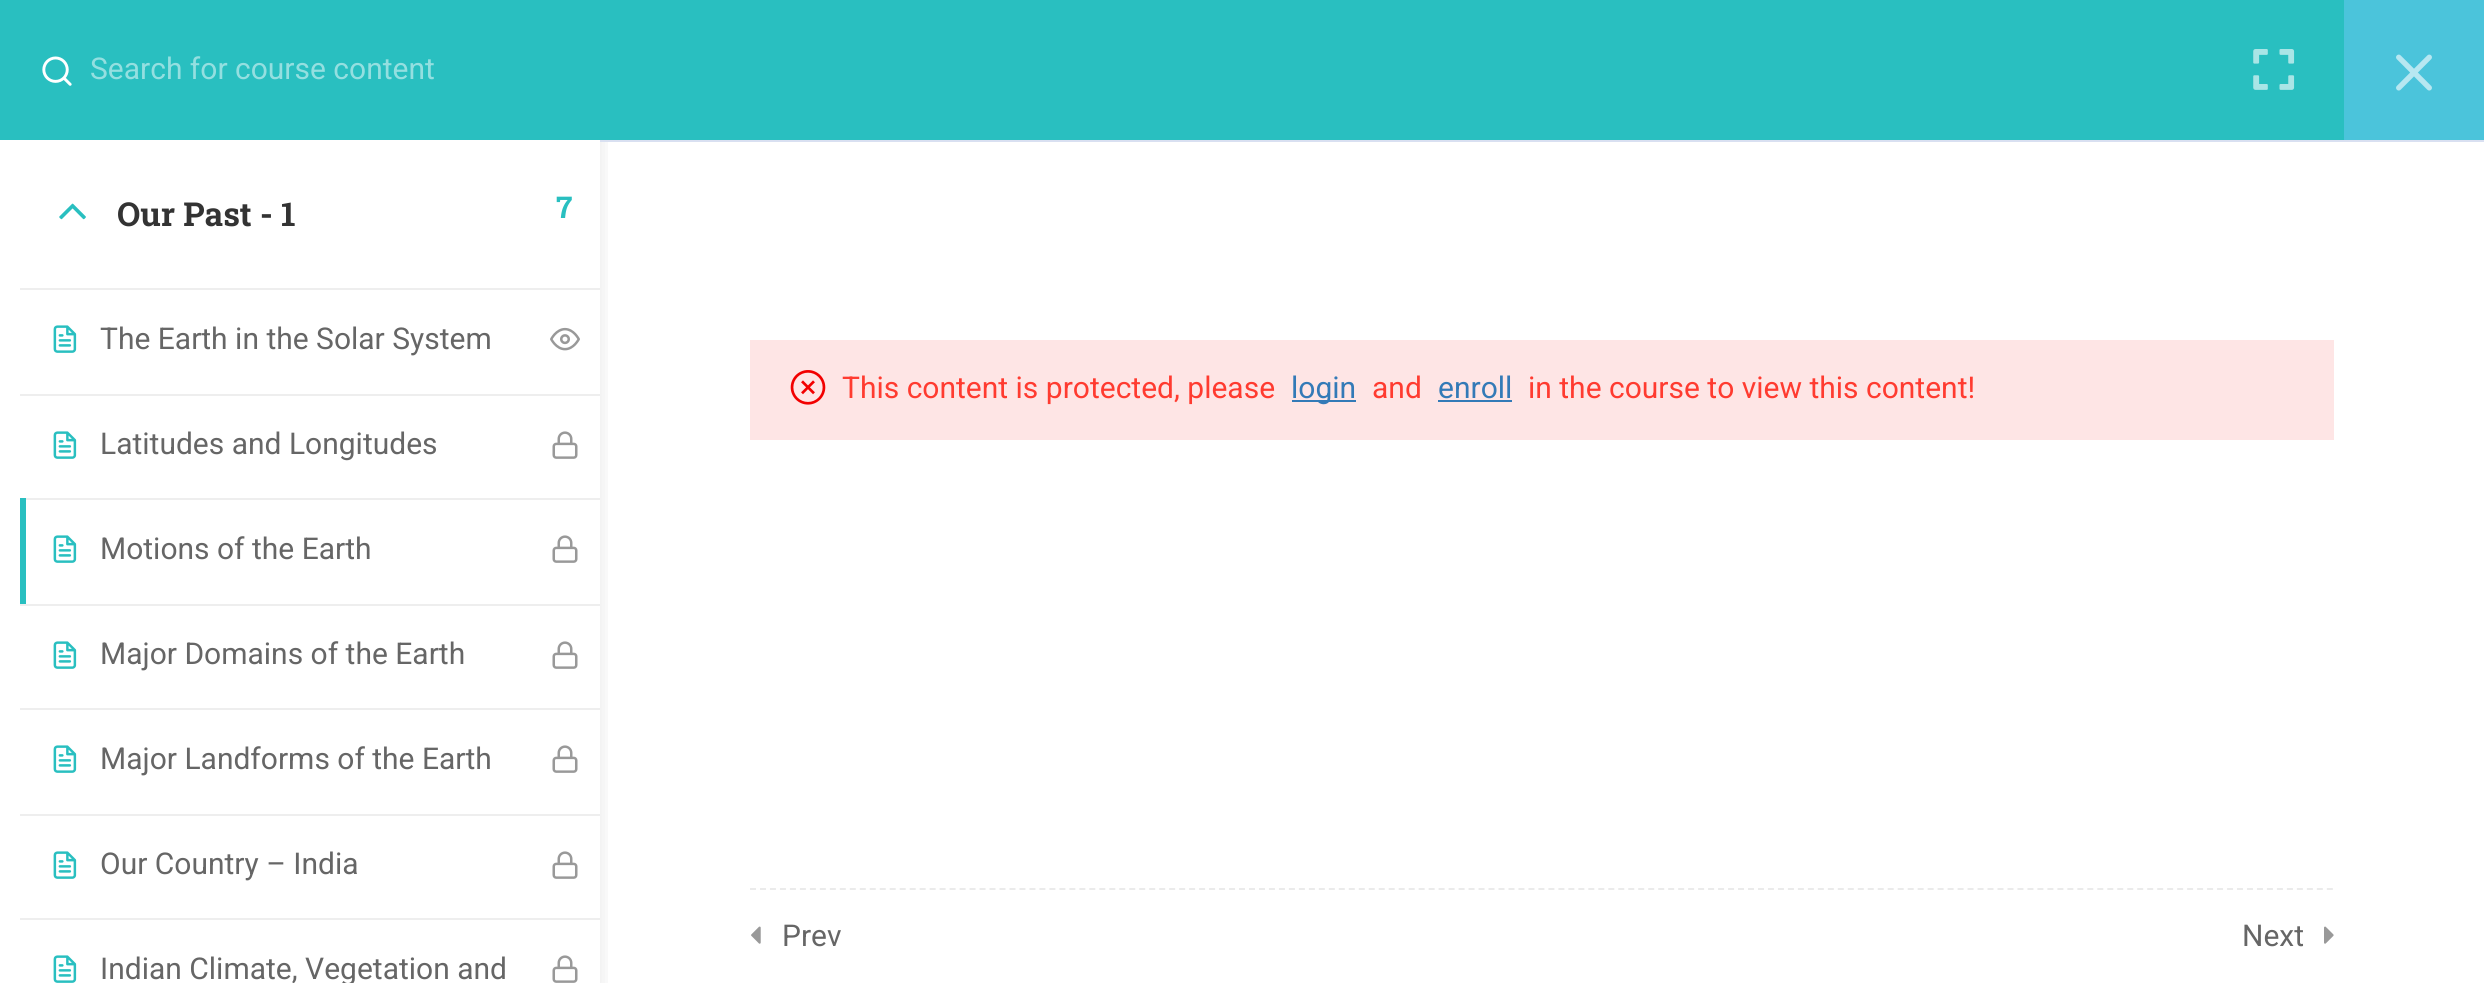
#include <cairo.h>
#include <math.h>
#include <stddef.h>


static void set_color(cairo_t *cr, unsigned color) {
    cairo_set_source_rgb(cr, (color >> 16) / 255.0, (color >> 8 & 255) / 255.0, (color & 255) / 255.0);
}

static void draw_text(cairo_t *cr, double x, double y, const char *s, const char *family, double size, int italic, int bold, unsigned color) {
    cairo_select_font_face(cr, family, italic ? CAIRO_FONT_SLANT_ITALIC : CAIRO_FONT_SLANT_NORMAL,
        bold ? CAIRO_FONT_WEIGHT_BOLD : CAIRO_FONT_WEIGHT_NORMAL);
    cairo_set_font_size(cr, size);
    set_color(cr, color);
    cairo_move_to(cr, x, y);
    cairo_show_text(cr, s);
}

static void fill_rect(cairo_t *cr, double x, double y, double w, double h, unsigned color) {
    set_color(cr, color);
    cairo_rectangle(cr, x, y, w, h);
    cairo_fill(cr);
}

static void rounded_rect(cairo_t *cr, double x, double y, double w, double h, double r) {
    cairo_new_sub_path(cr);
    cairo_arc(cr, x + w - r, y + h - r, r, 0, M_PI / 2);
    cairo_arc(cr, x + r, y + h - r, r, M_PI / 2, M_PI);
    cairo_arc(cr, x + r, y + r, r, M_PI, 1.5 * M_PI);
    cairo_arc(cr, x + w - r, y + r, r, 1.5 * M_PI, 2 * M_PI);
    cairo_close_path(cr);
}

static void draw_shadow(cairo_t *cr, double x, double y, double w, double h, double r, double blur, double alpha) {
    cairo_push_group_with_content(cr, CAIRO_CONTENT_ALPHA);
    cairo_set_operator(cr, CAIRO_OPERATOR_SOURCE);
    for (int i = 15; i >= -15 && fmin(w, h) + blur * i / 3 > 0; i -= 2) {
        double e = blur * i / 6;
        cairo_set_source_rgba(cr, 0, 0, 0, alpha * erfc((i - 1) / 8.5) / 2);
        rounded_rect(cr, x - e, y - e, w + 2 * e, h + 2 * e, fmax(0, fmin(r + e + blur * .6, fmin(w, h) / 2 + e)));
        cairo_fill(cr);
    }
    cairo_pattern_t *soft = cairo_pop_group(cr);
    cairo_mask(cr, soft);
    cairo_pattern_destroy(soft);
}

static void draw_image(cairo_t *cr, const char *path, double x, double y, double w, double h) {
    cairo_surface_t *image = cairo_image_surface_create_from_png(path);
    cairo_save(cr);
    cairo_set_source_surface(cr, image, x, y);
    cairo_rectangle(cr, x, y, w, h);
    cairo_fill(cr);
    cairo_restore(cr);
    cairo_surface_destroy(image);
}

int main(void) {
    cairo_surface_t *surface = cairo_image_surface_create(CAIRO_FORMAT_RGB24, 2484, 983);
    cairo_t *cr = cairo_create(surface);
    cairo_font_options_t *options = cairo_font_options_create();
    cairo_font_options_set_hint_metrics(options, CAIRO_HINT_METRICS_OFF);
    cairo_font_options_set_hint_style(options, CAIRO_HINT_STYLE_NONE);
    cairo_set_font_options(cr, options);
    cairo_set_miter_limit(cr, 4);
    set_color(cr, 0xFFFFFF);
    cairo_paint(cr);
    cairo_save(cr);
    cairo_rectangle(cr, 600, 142, 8, 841);
    cairo_clip(cr);
    set_color(cr, 0x000000);
    draw_shadow(cr, 0, 4, 600, 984, 0, 10, 0.1);
    cairo_restore(cr);
    fill_rect(cr, 0, 0, 2344, 140, 0x29BFC0);
    draw_image(cr, "assets/img1.png", 42, 56, 30, 30);
    draw_text(cr, 90, 79, "Search for course content", "Roboto", 30, 0, 0, 0x94DFE0);
    draw_image(cr, "assets/img2.png", 59, 203, 27, 17);
    draw_text(cr, 117, 226, "Our Past - 1", "Roboto Slab", 33, 0, 1, 0x333333);
    draw_text(cr, 556, 218, "7", "Roboto Slab", 30, 0, 1, 0x29BFC0);
    fill_rect(cr, 20, 288, 580, 2, 0xEEEEEE);
    draw_image(cr, "assets/img3.png", 53, 325, 24, 28);
    draw_text(cr, 100, 349, "The Earth in the Solar System", "Roboto", 30, 0, 0, 0x666666);
    draw_image(cr, "assets/img4.png", 550, 327, 30, 24);
    fill_rect(cr, 20, 394, 580, 2, 0xEEEEEE);
    draw_image(cr, "assets/img3.png", 53, 431, 24, 28);
    draw_text(cr, 100, 454, "Latitudes and Longitudes", "Roboto", 30, 0, 0, 0x666666);
    draw_image(cr, "assets/img5.png", 552, 431, 26, 28);
    fill_rect(cr, 20, 498, 580, 2, 0xEEEEEE);
    fill_rect(cr, 20, 498, 6, 108, 0x29BFC0);
    draw_image(cr, "assets/img3.png", 53, 535, 24, 28);
    draw_text(cr, 100, 559, "Motions of the Earth", "Roboto", 30, 0, 0, 0x666666);
    draw_image(cr, "assets/img5.png", 552, 535, 26, 28);
    fill_rect(cr, 20, 604, 580, 2, 0xEEEEEE);
    draw_image(cr, "assets/img3.png", 53, 641, 24, 28);
    draw_text(cr, 100, 664, "Major Domains of the Earth", "Roboto", 30, 0, 0, 0x666666);
    draw_image(cr, "assets/img5.png", 552, 641, 26, 28);
    fill_rect(cr, 20, 708, 580, 2, 0xEEEEEE);
    draw_image(cr, "assets/img3.png", 53, 745, 24, 28);
    draw_text(cr, 100, 769, "Major Landforms of the Earth", "Roboto", 30, 0, 0, 0x666666);
    draw_image(cr, "assets/img5.png", 552, 745, 26, 28);
    fill_rect(cr, 20, 814, 580, 2, 0xEEEEEE);
    draw_image(cr, "assets/img3.png", 53, 851, 24, 28);
    draw_text(cr, 100, 874, "Our Country – India", "Roboto", 30, 0, 0, 0x666666);
    draw_image(cr, "assets/img5.png", 552, 851, 26, 28);
    fill_rect(cr, 20, 918, 580, 2, 0xEEEEEE);
    draw_image(cr, "assets/img3.png", 53, 955, 24, 28);
    draw_text(cr, 100, 979, "Indian Climate, Vegetation and", "Roboto", 30, 0, 0, 0x666666);
    draw_image(cr, "assets/img5.png", 552, 955, 26, 28);
    fill_rect(cr, 600, 140, 1884, 2, 0xD9E0F1);
    draw_image(cr, "assets/img6.png", 2253, 49, 42, 41);
    fill_rect(cr, 2344, 0, 140, 140, 0x4BC4DB);
    draw_image(cr, "assets/img7.png", 2396, 54, 36, 37);
    fill_rect(cr, 750, 340, 1584, 100, 0xFEE5E5);
    draw_image(cr, "assets/img8.png", 790, 370, 36, 35);
    draw_text(cr, 842, 398, "This content is protected, please", "Roboto", 30, 0, 0, 0xFF3B30);
    fill_rect(cr, 1292, 400, 64, 2, 0x337AB7);
    draw_text(cr, 1291, 398, "login", "Roboto", 30, 0, 0, 0x337AB7);
    draw_text(cr, 1372, 398, "and", "Roboto", 30, 0, 0, 0xFF3B30);
    draw_text(cr, 1438, 398, "enroll", "Roboto", 30, 0, 0, 0x337AB7);
    fill_rect(cr, 1438, 400, 74, 2, 0x337AB7);
    draw_text(cr, 1528, 398, "in the course to view this content!", "Roboto", 30, 0, 0, 0xFF3B30);
    cairo_new_path(cr);
    cairo_move_to(cr, 750, 889);
    cairo_line_to(cr, 2334, 889);
    set_color(cr, 0xEBEBEB);
    cairo_set_dash(cr, (double[]){6, 3.98}, 2, 0);
    cairo_stroke(cr);
    draw_image(cr, "assets/img9.png", 751, 926, 10, 18);
    draw_text(cr, 782, 946, "Prev", "Roboto", 30, 0, 0, 0x666666);
    draw_text(cr, 2242, 946, "Next", "Roboto", 30, 0, 0, 0x666666);
    draw_image(cr, "assets/img10.png", 2324, 926, 10, 18);
    cairo_surface_write_to_png(surface, "output.png");
    cairo_font_options_destroy(options);
    cairo_destroy(cr);
    cairo_surface_destroy(surface);
    return 0;
}
